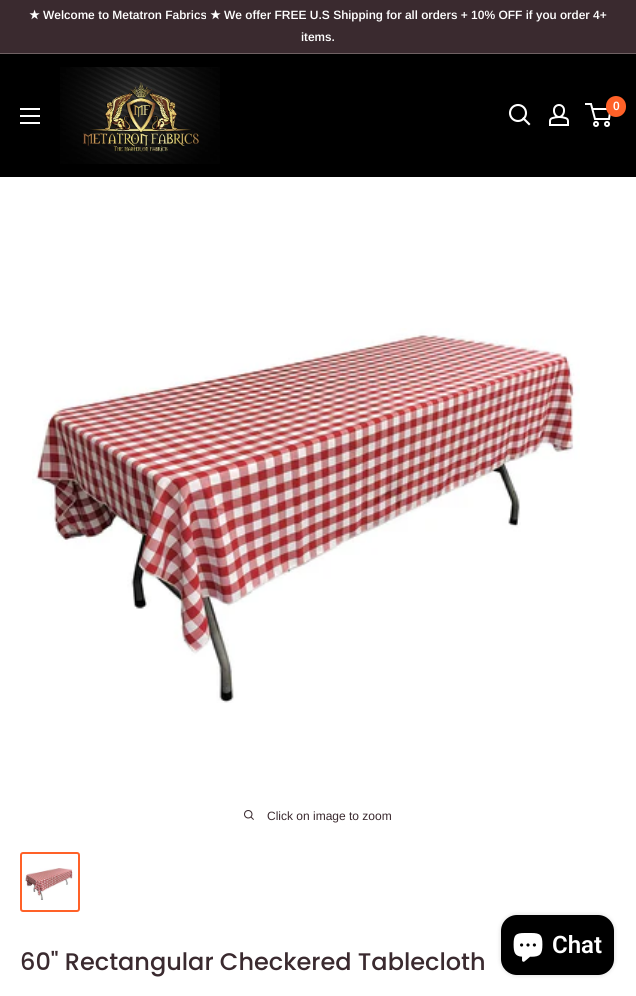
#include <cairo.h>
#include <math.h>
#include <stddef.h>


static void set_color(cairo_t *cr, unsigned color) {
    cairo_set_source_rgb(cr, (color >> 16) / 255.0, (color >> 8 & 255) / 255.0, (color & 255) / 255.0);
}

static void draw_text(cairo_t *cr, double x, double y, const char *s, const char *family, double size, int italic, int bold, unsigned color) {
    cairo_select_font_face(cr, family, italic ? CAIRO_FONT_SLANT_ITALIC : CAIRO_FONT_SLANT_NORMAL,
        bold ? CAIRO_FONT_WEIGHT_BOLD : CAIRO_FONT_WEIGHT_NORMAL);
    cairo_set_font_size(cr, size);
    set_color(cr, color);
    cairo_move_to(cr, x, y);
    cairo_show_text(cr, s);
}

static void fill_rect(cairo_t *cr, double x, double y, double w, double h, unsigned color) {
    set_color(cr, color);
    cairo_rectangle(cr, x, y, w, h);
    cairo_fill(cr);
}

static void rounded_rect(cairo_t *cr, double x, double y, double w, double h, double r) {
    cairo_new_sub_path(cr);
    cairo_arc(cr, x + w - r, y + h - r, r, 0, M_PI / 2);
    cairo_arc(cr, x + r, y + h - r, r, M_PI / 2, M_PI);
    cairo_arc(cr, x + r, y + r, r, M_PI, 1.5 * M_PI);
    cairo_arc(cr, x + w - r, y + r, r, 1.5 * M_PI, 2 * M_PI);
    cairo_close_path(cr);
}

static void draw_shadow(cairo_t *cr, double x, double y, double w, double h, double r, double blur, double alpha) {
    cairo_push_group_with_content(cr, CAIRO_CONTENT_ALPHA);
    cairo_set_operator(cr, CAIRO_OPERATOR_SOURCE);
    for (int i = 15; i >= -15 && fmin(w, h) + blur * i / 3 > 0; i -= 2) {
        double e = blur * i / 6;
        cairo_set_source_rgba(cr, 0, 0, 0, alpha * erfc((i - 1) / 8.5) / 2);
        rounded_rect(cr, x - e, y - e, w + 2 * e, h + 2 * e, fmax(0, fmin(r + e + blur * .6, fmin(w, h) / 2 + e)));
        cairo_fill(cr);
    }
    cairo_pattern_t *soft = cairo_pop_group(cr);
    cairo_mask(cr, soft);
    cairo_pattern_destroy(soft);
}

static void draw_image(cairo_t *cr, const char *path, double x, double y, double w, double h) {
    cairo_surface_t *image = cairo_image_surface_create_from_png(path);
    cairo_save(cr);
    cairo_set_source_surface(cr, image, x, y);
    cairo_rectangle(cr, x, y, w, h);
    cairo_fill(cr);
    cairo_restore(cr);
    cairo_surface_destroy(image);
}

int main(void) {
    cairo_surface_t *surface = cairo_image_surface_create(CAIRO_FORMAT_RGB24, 636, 996);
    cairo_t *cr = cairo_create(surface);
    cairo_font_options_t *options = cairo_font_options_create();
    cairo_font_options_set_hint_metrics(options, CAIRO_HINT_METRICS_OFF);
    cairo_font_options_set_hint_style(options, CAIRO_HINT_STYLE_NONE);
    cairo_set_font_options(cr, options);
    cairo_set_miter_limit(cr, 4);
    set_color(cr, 0x3A2A2F);
    cairo_paint(cr);
    fill_rect(cr, 0, 53, 636, 1, 0x6F6163);
    draw_text(cr, 29, 19, "★", "DejaVu Sans", 12, 0, 1, 0xFFFFFF);
    draw_text(cr, 43, 19, "Welcome to Metatron Fabrics", "Arimo SemiBold", 12, 0, 0, 0xFFFFFF);
    draw_text(cr, 210, 19, "★", "DejaVu Sans", 12, 0, 1, 0xFFFFFF);
    draw_text(cr, 224, 19, "We offer FREE U.S Shipping for all orders + 10% OFF if you order 4+", "Arimo SemiBold", 12, 0, 0, 0xFFFFFF);
    draw_text(cr, 301, 41, "items.", "Arimo SemiBold", 12, 0, 0, 0xFFFFFF);
    fill_rect(cr, 0, 54, 636, 123, 0x000000);
    draw_image(cr, "assets/img1.png", 60, 67, 160, 97);
    cairo_new_path(cr);
    cairo_move_to(cr, 529, 124);
    cairo_line_to(cr, 523.5, 118.5);
    set_color(cr, 0xFFFFFF);
    cairo_set_line_width(cr, 2.1);
    cairo_set_line_cap(cr, CAIRO_LINE_CAP_SQUARE);
    cairo_stroke(cr);
    cairo_arc(cr, 518, 113, 8, 0, 2 * M_PI);
    cairo_set_line_cap(cr, CAIRO_LINE_CAP_BUTT);
    cairo_stroke(cr);
    draw_image(cr, "assets/img2.png", 549, 104, 20, 22);
    cairo_arc(cr, 596, 124, 2, 0, 2 * M_PI);
    cairo_set_line_width(cr, 2);
    cairo_stroke(cr);
    cairo_arc(cr, 607, 124, 2, 0, 2 * M_PI);
    cairo_stroke(cr);
    cairo_new_path(cr);
    cairo_move_to(cr, 592.5, 109);
    cairo_line_to(cr, 610.5, 109);
    cairo_line_to(cr, 609, 119);
    cairo_line_to(cr, 595, 119);
    cairo_line_to(cr, 591, 104);
    cairo_line_to(cr, 585, 104);
    cairo_stroke(cr);
    set_color(cr, 0xFF6128);
    rounded_rect(cr, 606, 96, 20, 21, 10);
    cairo_fill(cr);
    draw_text(cr, 613, 110, "0", "Arimo SemiBold", 12, 0, 0, 0xFFFFFF);
    draw_image(cr, "assets/img3.png", 20, 108, 20, 16);
    fill_rect(cr, 0, 177, 636, 819, 0xFFFFFF);
    draw_image(cr, "assets/img4.png", 32, 328, 548, 375);
    draw_image(cr, "assets/img5.png", 244, 810, 10, 10);
    draw_text(cr, 267, 820, "Click on image to zoom", "Arimo", 12, 0, 0, 0x3A2A2F);
    rounded_rect(cr, 21, 853, 58, 58, 2);
    set_color(cr, 0xFF6128);
    cairo_stroke(cr);
    draw_image(cr, "assets/img6.png", 24, 868, 49, 32);
    draw_text(cr, 20, 970, "60\" Rectangular Checkered Tablecloth", "Poppins Medium", 24, 0, 0, 0x3A2A2F);
    set_color(cr, 0x000000);
    draw_shadow(cr, 501, 915, 113, 60, 16, 2.5, 0.15);
    set_color(cr, 0x000000);
    rounded_rect(cr, 501, 915, 113, 60, 16);
    cairo_fill(cr);
    draw_image(cr, "assets/img7.png", 513, 933, 30, 29);
    draw_text(cr, 552, 953, "Chat", "Roboto SemiBold", 24, 0, 0, 0xFFFFFF);
    cairo_surface_write_to_png(surface, "output.png");
    cairo_font_options_destroy(options);
    cairo_destroy(cr);
    cairo_surface_destroy(surface);
    return 0;
}
